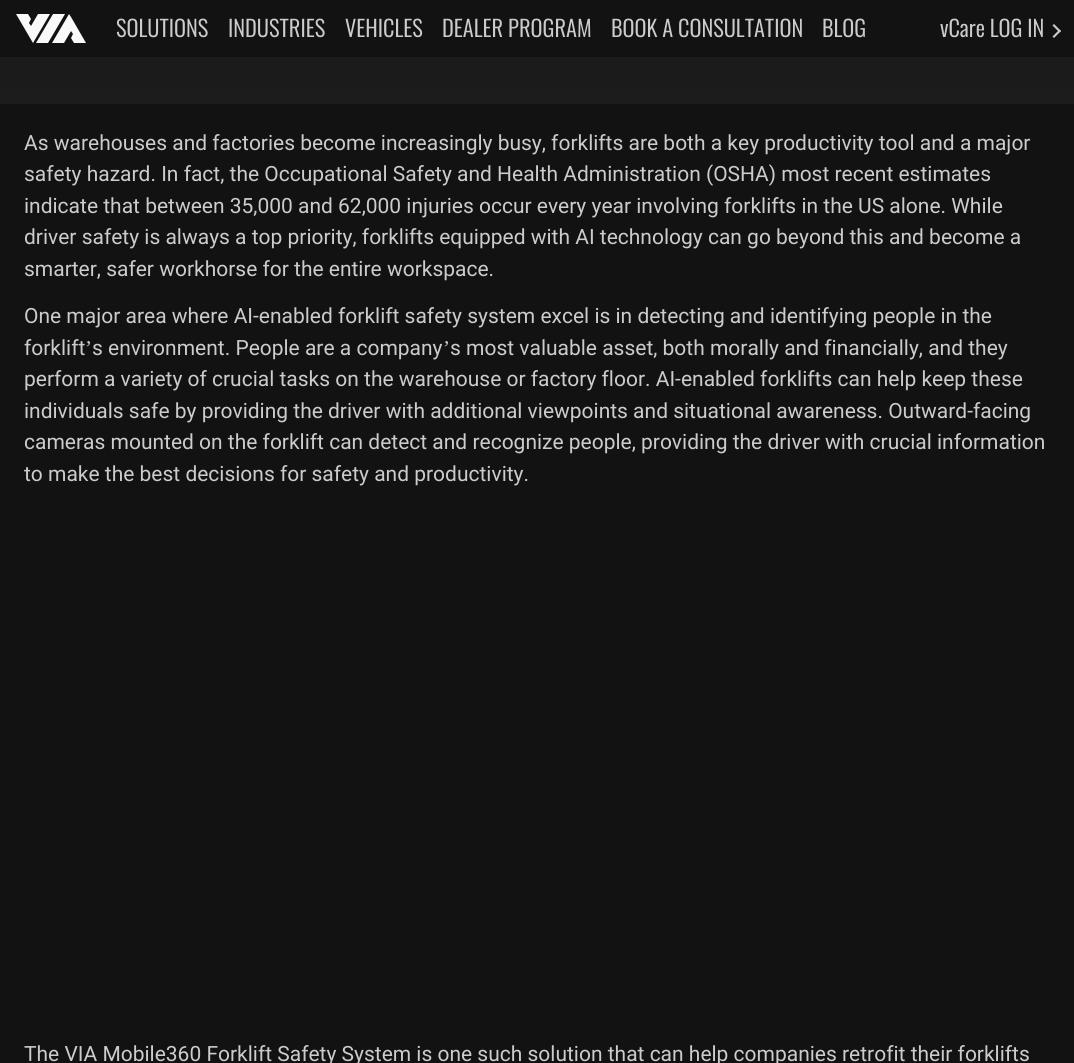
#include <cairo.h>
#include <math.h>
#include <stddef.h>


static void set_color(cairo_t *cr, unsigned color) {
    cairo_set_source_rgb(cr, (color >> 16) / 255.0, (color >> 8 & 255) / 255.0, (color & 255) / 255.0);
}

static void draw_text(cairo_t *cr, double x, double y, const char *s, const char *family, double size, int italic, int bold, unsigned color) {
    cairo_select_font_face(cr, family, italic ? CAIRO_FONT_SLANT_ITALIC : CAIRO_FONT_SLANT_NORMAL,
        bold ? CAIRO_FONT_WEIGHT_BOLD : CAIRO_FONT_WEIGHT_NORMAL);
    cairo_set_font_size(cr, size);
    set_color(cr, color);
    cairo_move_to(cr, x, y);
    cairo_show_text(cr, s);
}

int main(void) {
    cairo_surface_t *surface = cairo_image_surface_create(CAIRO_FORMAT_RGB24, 1074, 1063);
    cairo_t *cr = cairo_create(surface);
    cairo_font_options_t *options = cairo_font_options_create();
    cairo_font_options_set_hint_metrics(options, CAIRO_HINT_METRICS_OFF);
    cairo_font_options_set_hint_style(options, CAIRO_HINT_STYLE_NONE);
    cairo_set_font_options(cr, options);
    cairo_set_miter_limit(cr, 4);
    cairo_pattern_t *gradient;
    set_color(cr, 0x121212);
    cairo_paint(cr);
    set_color(cr, 0xF9F9F9);
    cairo_new_path(cr);
    cairo_move_to(cr, 50, 14);
    cairo_line_to(cr, 33, 43);
    cairo_line_to(cr, 16, 14);
    cairo_line_to(cr, 28, 14);
    cairo_line_to(cr, 31, 19);
    cairo_line_to(cr, 29, 23);
    cairo_line_to(cr, 31, 26);
    cairo_line_to(cr, 38, 14);
    cairo_close_path(cr);
    cairo_move_to(cr, 71, 17);
    cairo_line_to(cr, 69, 14);
    cairo_line_to(cr, 52, 43);
    cairo_line_to(cr, 64, 43);
    cairo_line_to(cr, 71, 31);
    cairo_line_to(cr, 73, 34);
    cairo_line_to(cr, 71, 38);
    cairo_line_to(cr, 74, 43);
    cairo_line_to(cr, 86, 43);
    cairo_close_path(cr);
    cairo_move_to(cr, 53, 14);
    cairo_line_to(cr, 36, 43);
    cairo_line_to(cr, 48, 43);
    cairo_line_to(cr, 65, 14);
    cairo_close_path(cr);
    cairo_fill(cr);
    draw_text(cr, 116, 37, "SOLUTIONS", "Oswald Light", 22.5, 0, 0, 0xCCCCCC);
    draw_text(cr, 228, 37, "INDUSTRIES", "Oswald Light", 22.5, 0, 0, 0xCCCCCC);
    draw_text(cr, 345, 37, "VEHICLES", "Oswald Light", 22.5, 0, 0, 0xCCCCCC);
    draw_text(cr, 442, 37, "DEALER PROGRAM", "Oswald Light", 22.5, 0, 0, 0xCCCCCC);
    draw_text(cr, 611, 37, "BOOK A CONSULTATION", "Oswald Light", 22.5, 0, 0, 0xCCCCCC);
    draw_text(cr, 822, 37, "BLOG", "Oswald Light", 22.5, 0, 0, 0xCCCCCC);
    draw_text(cr, 940, 37, "vCare LOG IN", "Oswald Light", 22.5, 0, 0, 0xCCCCCC);
    cairo_new_path(cr);
    cairo_move_to(cr, 1054, 24);
    cairo_line_to(cr, 1061, 31);
    cairo_line_to(cr, 1059.5, 32.5);
    cairo_line_to(cr, 1052.5, 25.5);
    cairo_close_path(cr);
    cairo_fill(cr);
    cairo_new_path(cr);
    cairo_move_to(cr, 1059.5, 29.5);
    cairo_line_to(cr, 1061, 31);
    cairo_line_to(cr, 1054, 38);
    cairo_line_to(cr, 1052.5, 36.5);
    cairo_close_path(cr);
    cairo_fill(cr);
    gradient = cairo_pattern_create_linear(537, -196, 537, 104);
    cairo_pattern_add_color_stop_rgba(gradient, 0, 0.071, 0.071, 0.071, 1);
    cairo_pattern_add_color_stop_rgba(gradient, 1, 0.11, 0.11, 0.11, 1);
    cairo_set_source(cr, gradient);
    cairo_pattern_destroy(gradient);
    cairo_rectangle(cr, 0, 57, 1074, 47);
    cairo_fill(cr);
    draw_text(cr, 24, 150, "As warehouses and factories become increasingly busy, forklifts are both a key productivity tool and a major", "Roboto", 21, 0, 0, 0xCCCCCC);
    draw_text(cr, 24, 181, "safety hazard. In fact, the Occupational Safety and Health Administration (OSHA) most recent estimates", "Roboto", 21, 0, 0, 0xCCCCCC);
    draw_text(cr, 24, 213, "indicate that between 35,000 and 62,000 injuries occur every year involving forklifts in the US alone. While", "Roboto", 21, 0, 0, 0xCCCCCC);
    draw_text(cr, 24, 244, "driver safety is always a top priority, forklifts equipped with AI technology can go beyond this and become a", "Roboto", 21, 0, 0, 0xCCCCCC);
    draw_text(cr, 24, 276, "smarter, safer workhorse for the entire workspace.", "Roboto", 21, 0, 0, 0xCCCCCC);
    draw_text(cr, 24, 323, "One major area where AI-enabled forklift safety system excel is in detecting and identifying people in the", "Roboto", 21, 0, 0, 0xCCCCCC);
    draw_text(cr, 24, 355, "forklift", "Roboto", 21, 0, 0, 0xCCCCCC);
    draw_text(cr, 85, 355, "’", "Liberation Serif", 21, 0, 0, 0xCCCCCC);
    draw_text(cr, 92, 355, "s environment. People are a company", "Roboto", 21, 0, 0, 0xCCCCCC);
    draw_text(cr, 443, 355, "’", "Liberation Serif", 21, 0, 0, 0xCCCCCC);
    draw_text(cr, 450, 355, "s most valuable asset, both morally and financially, and they", "Roboto", 21, 0, 0, 0xCCCCCC);
    draw_text(cr, 24, 386, "perform a variety of crucial tasks on the warehouse or factory floor. AI-enabled forklifts can help keep these", "Roboto", 21, 0, 0, 0xCCCCCC);
    draw_text(cr, 24, 418, "individuals safe by providing the driver with additional viewpoints and situational awareness. Outward-facing", "Roboto", 21, 0, 0, 0xCCCCCC);
    draw_text(cr, 24, 449, "cameras mounted on the forklift can detect and recognize people, providing the driver with crucial information", "Roboto", 21, 0, 0, 0xCCCCCC);
    draw_text(cr, 24, 481, "to make the best decisions for safety and productivity.", "Roboto", 21, 0, 0, 0xCCCCCC);
    draw_text(cr, 24, 1061, "The VIA Mobile360 Forklift Safety System is one such solution that can help companies retrofit their forklifts", "Roboto", 21, 0, 0, 0xCCCCCC);
    cairo_surface_write_to_png(surface, "output.png");
    cairo_font_options_destroy(options);
    cairo_destroy(cr);
    cairo_surface_destroy(surface);
    return 0;
}
